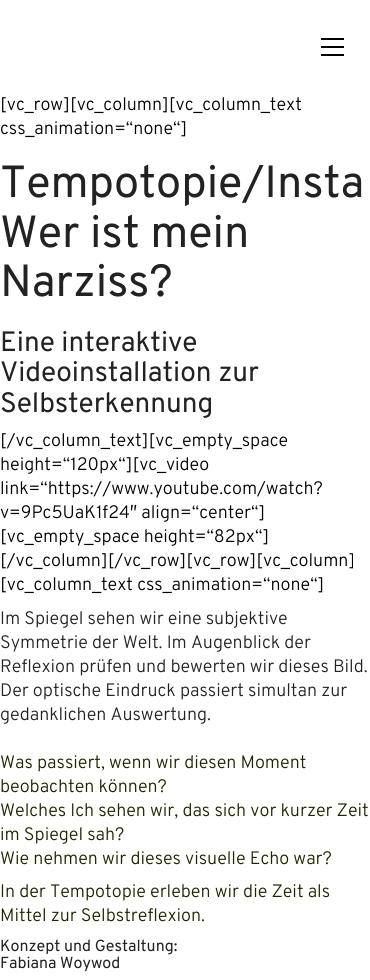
#include <cairo.h>
#include <math.h>
#include <stddef.h>


static void set_color(cairo_t *cr, unsigned color) {
    cairo_set_source_rgb(cr, (color >> 16) / 255.0, (color >> 8 & 255) / 255.0, (color & 255) / 255.0);
}

static void draw_text(cairo_t *cr, double x, double y, const char *s, const char *family, double size, int italic, int bold, unsigned color) {
    cairo_select_font_face(cr, family, italic ? CAIRO_FONT_SLANT_ITALIC : CAIRO_FONT_SLANT_NORMAL,
        bold ? CAIRO_FONT_WEIGHT_BOLD : CAIRO_FONT_WEIGHT_NORMAL);
    cairo_set_font_size(cr, size);
    set_color(cr, color);
    cairo_move_to(cr, x, y);
    cairo_show_text(cr, s);
}

static void fill_rect(cairo_t *cr, double x, double y, double w, double h, unsigned color) {
    set_color(cr, color);
    cairo_rectangle(cr, x, y, w, h);
    cairo_fill(cr);
}

int main(void) {
    cairo_surface_t *surface = cairo_image_surface_create(CAIRO_FORMAT_RGB24, 370, 980);
    cairo_t *cr = cairo_create(surface);
    cairo_font_options_t *options = cairo_font_options_create();
    cairo_font_options_set_hint_metrics(options, CAIRO_HINT_METRICS_OFF);
    cairo_font_options_set_hint_style(options, CAIRO_HINT_STYLE_NONE);
    cairo_set_font_options(cr, options);
    cairo_set_miter_limit(cr, 4);
    set_color(cr, 0xFFFFFF);
    cairo_paint(cr);
    fill_rect(cr, 321, 46, 23, 2, 0x000000);
    fill_rect(cr, 321, 38, 23, 2, 0x000000);
    fill_rect(cr, 321, 54, 23, 2, 0x000000);
    draw_text(cr, 0, 110, "[vc_row][vc_column][vc_column_text", "Overpass Light", 18, 0, 0, 0x000000);
    draw_text(cr, 0, 134, "css_animation=“none“]", "Overpass Light", 18, 0, 0, 0x000000);
    draw_text(cr, 0, 197, "Tempotopie/Insta", "Overpass", 45, 0, 0, 0x222222);
    draw_text(cr, 0, 247, "Wer ist mein", "Overpass", 45, 0, 0, 0x222222);
    draw_text(cr, 0, 296, "Narziss?", "Overpass", 45, 0, 0, 0x222222);
    draw_text(cr, 0, 351, "Eine interaktive", "Overpass", 28, 0, 0, 0x222222);
    draw_text(cr, 0, 381, "Videoinstallation zur", "Overpass", 28, 0, 0, 0x222222);
    draw_text(cr, 0, 412, "Selbsterkennung", "Overpass", 28, 0, 0, 0x222222);
    draw_text(cr, 0, 446, "[/vc_column_text][vc_empty_space", "Overpass Light", 18, 0, 0, 0x000000);
    draw_text(cr, 0, 470, "height=“120px“][vc_video", "Overpass Light", 18, 0, 0, 0x000000);
    draw_text(cr, 0, 494, "link=“https://www.youtube.com/watch?", "Overpass Light", 18, 0, 0, 0x000000);
    draw_text(cr, 0, 518, "v=9Pc5UaK1f24″ align=“center“]", "Overpass Light", 18, 0, 0, 0x000000);
    draw_text(cr, 0, 542, "[vc_empty_space height=“82px“]", "Overpass Light", 18, 0, 0, 0x000000);
    draw_text(cr, 0, 566, "[/vc_column][/vc_row][vc_row][vc_column]", "Overpass Light", 18, 0, 0, 0x000000);
    draw_text(cr, 0, 590, "[vc_column_text css_animation=“none“]", "Overpass Light", 18, 0, 0, 0x000000);
    draw_text(cr, 0, 624, "Im Spiegel sehen wir eine subjektive", "Overpass Light", 18, 0, 0, 0x222222);
    draw_text(cr, 0, 648, "Symmetrie der Welt. Im Augenblick der", "Overpass Light", 18, 0, 0, 0x222222);
    draw_text(cr, 0, 672, "Reflexion prüfen und bewerten wir dieses Bild.", "Overpass Light", 18, 0, 0, 0x222222);
    draw_text(cr, 0, 696, "Der optische Eindruck passiert simultan zur", "Overpass Light", 18, 0, 0, 0x222222);
    draw_text(cr, 0, 720, "gedanklichen Auswertung.", "Overpass Light", 18, 0, 0, 0x222222);
    draw_text(cr, 0, 768, "Was passiert, wenn wir diesen Moment", "Overpass Light", 18, 0, 0, 0x222200);
    draw_text(cr, 0, 792, "beobachten können?", "Overpass Light", 18, 0, 0, 0x222200);
    draw_text(cr, 0, 816, "Welches Ich sehen wir, das sich vor kurzer Zeit", "Overpass Light", 18, 0, 0, 0x222200);
    draw_text(cr, 0, 840, "im Spiegel sah?", "Overpass Light", 18, 0, 0, 0x222200);
    draw_text(cr, 0, 864, "Wie nehmen wir dieses visuelle Echo war?", "Overpass Light", 18, 0, 0, 0x222200);
    draw_text(cr, 0, 897, "In der Tempotopie erleben wir die Zeit als", "Overpass Light", 18, 0, 0, 0x222200);
    draw_text(cr, 0, 921, "Mittel zur Selbstreflexion.", "Overpass Light", 18, 0, 0, 0x222200);
    draw_text(cr, 0, 951, "Konzept und Gestaltung:", "Overpass", 16, 0, 0, 0x222222);
    draw_text(cr, 0, 968, "Fabiana Woywod", "Overpass", 16, 0, 0, 0x222222);
    cairo_surface_write_to_png(surface, "output.png");
    cairo_font_options_destroy(options);
    cairo_destroy(cr);
    cairo_surface_destroy(surface);
    return 0;
}
